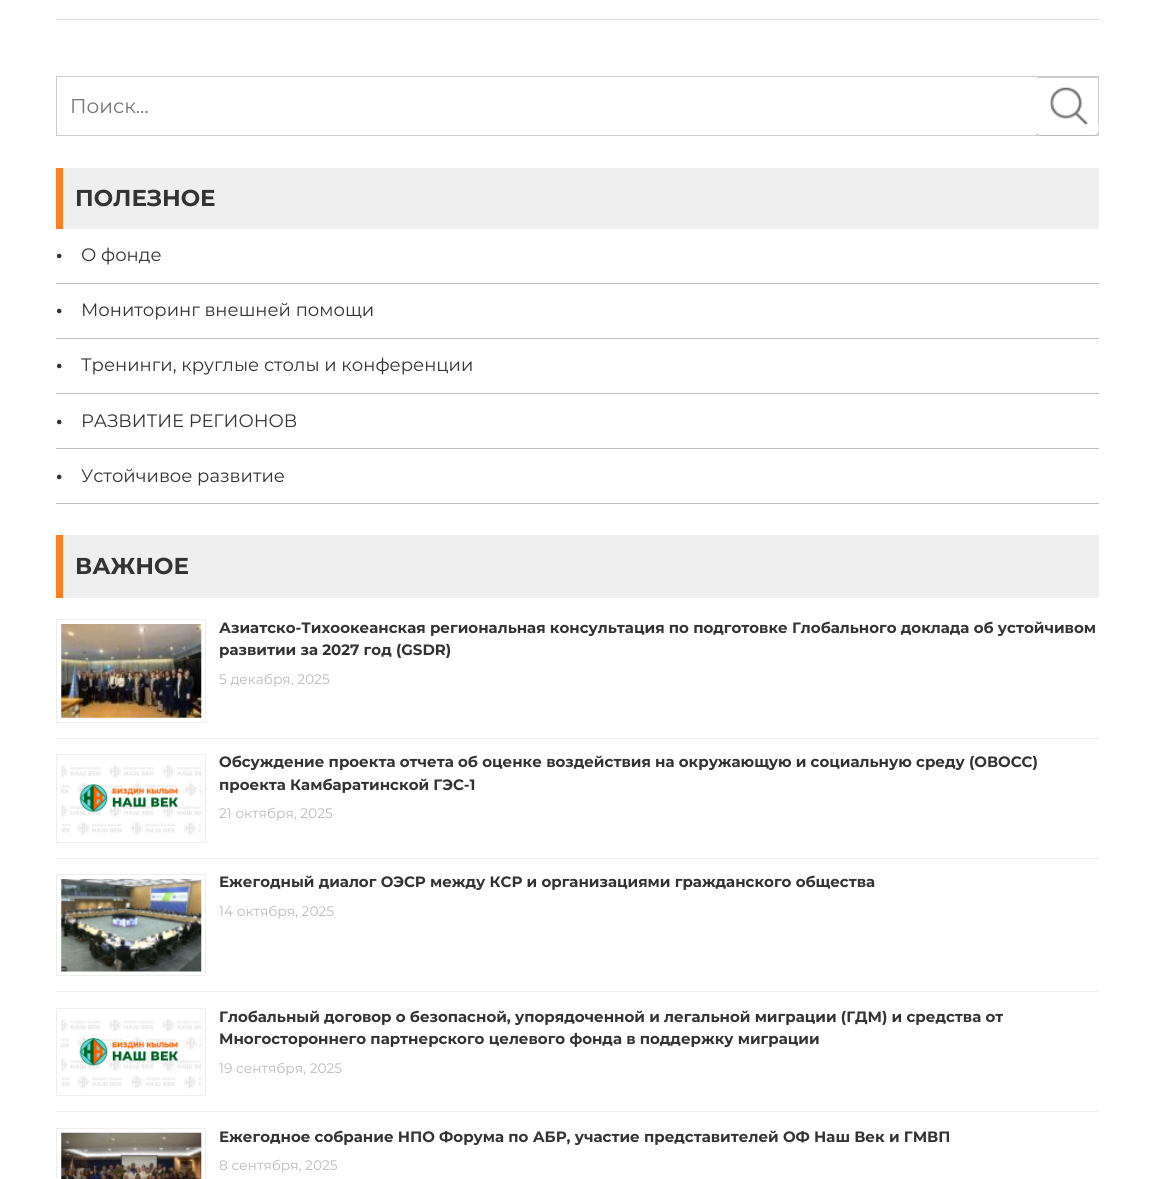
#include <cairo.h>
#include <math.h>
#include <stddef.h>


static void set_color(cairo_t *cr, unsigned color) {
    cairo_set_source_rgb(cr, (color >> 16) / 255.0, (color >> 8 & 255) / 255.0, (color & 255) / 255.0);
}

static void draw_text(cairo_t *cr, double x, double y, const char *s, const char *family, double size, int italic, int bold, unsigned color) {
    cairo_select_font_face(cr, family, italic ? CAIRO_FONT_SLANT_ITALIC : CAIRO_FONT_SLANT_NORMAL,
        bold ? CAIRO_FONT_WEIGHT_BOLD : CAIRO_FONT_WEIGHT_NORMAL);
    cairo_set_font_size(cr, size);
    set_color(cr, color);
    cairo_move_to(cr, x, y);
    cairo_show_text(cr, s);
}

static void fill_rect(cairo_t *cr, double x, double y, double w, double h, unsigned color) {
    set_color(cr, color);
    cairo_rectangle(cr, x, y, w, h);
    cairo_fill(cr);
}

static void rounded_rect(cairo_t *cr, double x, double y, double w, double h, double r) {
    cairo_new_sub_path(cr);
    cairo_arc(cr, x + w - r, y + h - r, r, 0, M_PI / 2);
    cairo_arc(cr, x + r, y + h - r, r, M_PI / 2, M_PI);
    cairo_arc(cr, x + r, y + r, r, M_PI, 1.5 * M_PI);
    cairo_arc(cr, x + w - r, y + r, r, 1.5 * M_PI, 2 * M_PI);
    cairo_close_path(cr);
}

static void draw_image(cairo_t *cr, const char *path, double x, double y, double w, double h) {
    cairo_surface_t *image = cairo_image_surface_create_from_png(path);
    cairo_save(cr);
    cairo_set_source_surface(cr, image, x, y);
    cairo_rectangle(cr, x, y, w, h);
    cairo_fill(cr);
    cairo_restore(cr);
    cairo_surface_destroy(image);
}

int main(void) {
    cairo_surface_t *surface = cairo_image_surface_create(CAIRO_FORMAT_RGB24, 1155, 1179);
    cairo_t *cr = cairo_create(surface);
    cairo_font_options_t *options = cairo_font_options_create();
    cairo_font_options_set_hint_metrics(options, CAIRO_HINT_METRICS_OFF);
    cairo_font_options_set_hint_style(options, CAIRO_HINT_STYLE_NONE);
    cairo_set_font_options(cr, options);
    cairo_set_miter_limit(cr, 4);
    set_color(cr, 0xFFFFFF);
    cairo_paint(cr);
    fill_rect(cr, 56, 19, 1043, 1, 0xDEDEDE);
    cairo_rectangle(cr, 56.5, 76.5, 1042, 59);
    set_color(cr, 0xCCCCCC);
    cairo_set_line_width(cr, 1);
    cairo_stroke(cr);
    draw_text(cr, 70, 113, "Поиск…", "Montserrat", 20, 0, 0, 0x757575);
    set_color(cr, 0xFFFFFF);
    rounded_rect(cr, 1036, 76, 63, 60, 4);
    cairo_fill(cr);
    draw_image(cr, "assets/img1.png", 1050, 87, 38, 38);
    set_color(cr, 0xCCCCCC);
    cairo_new_path(cr);
    cairo_move_to(cr, 1040, 78);
    cairo_curve_to(cr, 1038, 78, 1037, 79, 1036, 79);
    cairo_curve_to(cr, 1037, 78, 1038, 77, 1039, 76);
    cairo_line_to(cr, 1096, 76);
    cairo_line_to(cr, 1098, 77);
    cairo_line_to(cr, 1097, 78);
    cairo_line_to(cr, 1095, 78);
    cairo_close_path(cr);
    cairo_fill(cr);
    cairo_new_path(cr);
    cairo_move_to(cr, 1097, 134);
    cairo_curve_to(cr, 1100, 132, 1098, 124, 1098, 123);
    cairo_line_to(cr, 1098, 80);
    cairo_line_to(cr, 1097, 78);
    cairo_line_to(cr, 1098, 77);
    cairo_line_to(cr, 1099, 79);
    cairo_line_to(cr, 1099, 134);
    cairo_line_to(cr, 1098, 135);
    cairo_close_path(cr);
    cairo_fill(cr);
    set_color(cr, 0xBBBBBB);
    cairo_new_path(cr);
    cairo_move_to(cr, 1036, 133);
    cairo_curve_to(cr, 1037, 134, 1038, 135, 1040, 135);
    cairo_line_to(cr, 1095, 135);
    cairo_line_to(cr, 1097, 134);
    cairo_line_to(cr, 1098, 135);
    cairo_line_to(cr, 1095, 136);
    cairo_line_to(cr, 1040, 136);
    cairo_curve_to(cr, 1038, 136, 1037, 135, 1036, 134);
    cairo_close_path(cr);
    cairo_fill(cr);
    fill_rect(cr, 63, 168, 1036, 61, 0xEFEFEF);
    fill_rect(cr, 56, 168, 7, 61, 0xFE7E21);
    draw_text(cr, 75, 206, "ПОЛЕЗНОЕ", "Montserrat", 23, 0, 1, 0x333333);
    fill_rect(cr, 56, 283, 1043, 1, 0xBDBDBD);
    draw_text(cr, 56, 261, "•", "Montserrat", 18, 0, 1, 0x333333);
    draw_text(cr, 81, 261, "О фонде", "Montserrat", 18, 0, 0, 0x333333);
    fill_rect(cr, 56, 338, 1043, 1, 0xBDBDBD);
    draw_text(cr, 56, 316, "•", "Montserrat", 18, 0, 1, 0x333333);
    draw_text(cr, 81, 316, "Мониторинг внешней помощи", "Montserrat", 18, 0, 0, 0x333333);
    fill_rect(cr, 56, 393, 1043, 1, 0xBDBDBD);
    draw_text(cr, 56, 371, "•", "Montserrat", 18, 0, 1, 0x333333);
    draw_text(cr, 81, 371, "Тренинги, круглые столы и конференции", "Montserrat", 18, 0, 0, 0x333333);
    fill_rect(cr, 56, 448, 1043, 1, 0xBDBDBD);
    draw_text(cr, 56, 427, "•", "Montserrat", 18, 0, 1, 0x333333);
    draw_text(cr, 81, 427, "РАЗВИТИЕ РЕГИОНОВ", "Montserrat", 18, 0, 0, 0x333333);
    fill_rect(cr, 56, 503, 1043, 1, 0xBDBDBD);
    draw_text(cr, 56, 482, "•", "Montserrat", 18, 0, 1, 0x333333);
    draw_text(cr, 81, 482, "Устойчивое развитие", "Montserrat", 18, 0, 0, 0x333333);
    fill_rect(cr, 63, 535, 1036, 63, 0xEFEFEF);
    fill_rect(cr, 56, 535, 7, 63, 0xFE7E21);
    draw_text(cr, 75, 574, "ВАЖНОЕ", "Montserrat", 23, 0, 1, 0x333333);
    fill_rect(cr, 56, 738, 1043, 1, 0xEEEEEE);
    cairo_rectangle(cr, 56.5, 619.5, 149, 103);
    cairo_stroke(cr);
    draw_image(cr, "assets/img2.png", 61, 624, 141, 94);
    draw_text(cr, 219, 633, "Азиатско-Тихоокеанская региональная консультация по подготовке Глобального доклада об устойчивом", "Montserrat", 15, 0, 1, 0x333333);
    draw_text(cr, 219, 655, "развитии за 2027 год (GSDR)", "Montserrat", 15, 0, 1, 0x333333);
    draw_text(cr, 219, 684, "5 декабря, 2025", "Montserrat", 13.75, 0, 0, 0xBBBBBB);
    fill_rect(cr, 56, 858, 1043, 1, 0xEEEEEE);
    cairo_rectangle(cr, 56.5, 754.5, 149, 88);
    cairo_stroke(cr);
    draw_image(cr, "assets/img3.png", 61, 765, 141, 70);
    draw_text(cr, 219, 767, "Обсуждение проекта отчета об оценке воздействия на окружающую и социальную среду (ОВОСС)", "Montserrat", 15, 0, 1, 0x333333);
    draw_text(cr, 219, 790, "проекта Камбаратинской ГЭС-1", "Montserrat", 15, 0, 1, 0x333333);
    draw_text(cr, 219, 818, "21 октября, 2025", "Montserrat", 13.75, 0, 0, 0xBBBBBB);
    fill_rect(cr, 56, 991, 1043, 1, 0xEEEEEE);
    cairo_rectangle(cr, 56.5, 874.5, 149, 101);
    cairo_stroke(cr);
    draw_image(cr, "assets/img4.png", 61, 879, 141, 93);
    draw_text(cr, 219, 887, "Ежегодный диалог ОЭСР между КСР и организациями гражданского общества", "Montserrat", 15, 0, 1, 0x333333);
    draw_text(cr, 219, 916, "14 октября, 2025", "Montserrat", 13.75, 0, 0, 0xBBBBBB);
    fill_rect(cr, 56, 1111, 1043, 1, 0xEEEEEE);
    cairo_rectangle(cr, 56.5, 1008.5, 149, 87);
    cairo_stroke(cr);
    draw_image(cr, "assets/img5.png", 61, 1019, 141, 70);
    draw_text(cr, 219, 1022, "Глобальный договор о безопасной, упорядоченной и легальной миграции (ГДМ) и средства от", "Montserrat", 15, 0, 1, 0x333333);
    draw_text(cr, 219, 1044, "Многостороннего партнерского целевого фонда в поддержку миграции", "Montserrat", 15, 0, 1, 0x333333);
    draw_text(cr, 219, 1073, "19 сентября, 2025", "Montserrat", 13.75, 0, 0, 0xBBBBBB);
    cairo_rectangle(cr, 56.5, 1128.5, 149, 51);
    set_color(cr, 0xEEEEEE);
    cairo_stroke(cr);
    draw_image(cr, "assets/img6.png", 61, 1132, 141, 47);
    draw_text(cr, 219, 1142, "Ежегодное собрание НПО Форума по АБР, участие представителей ОФ Наш Век и ГМВП", "Montserrat", 15, 0, 1, 0x333333);
    draw_text(cr, 219, 1170, "8 сентября, 2025", "Montserrat", 13.75, 0, 0, 0xBBBBBB);
    cairo_surface_write_to_png(surface, "output.png");
    cairo_font_options_destroy(options);
    cairo_destroy(cr);
    cairo_surface_destroy(surface);
    return 0;
}
